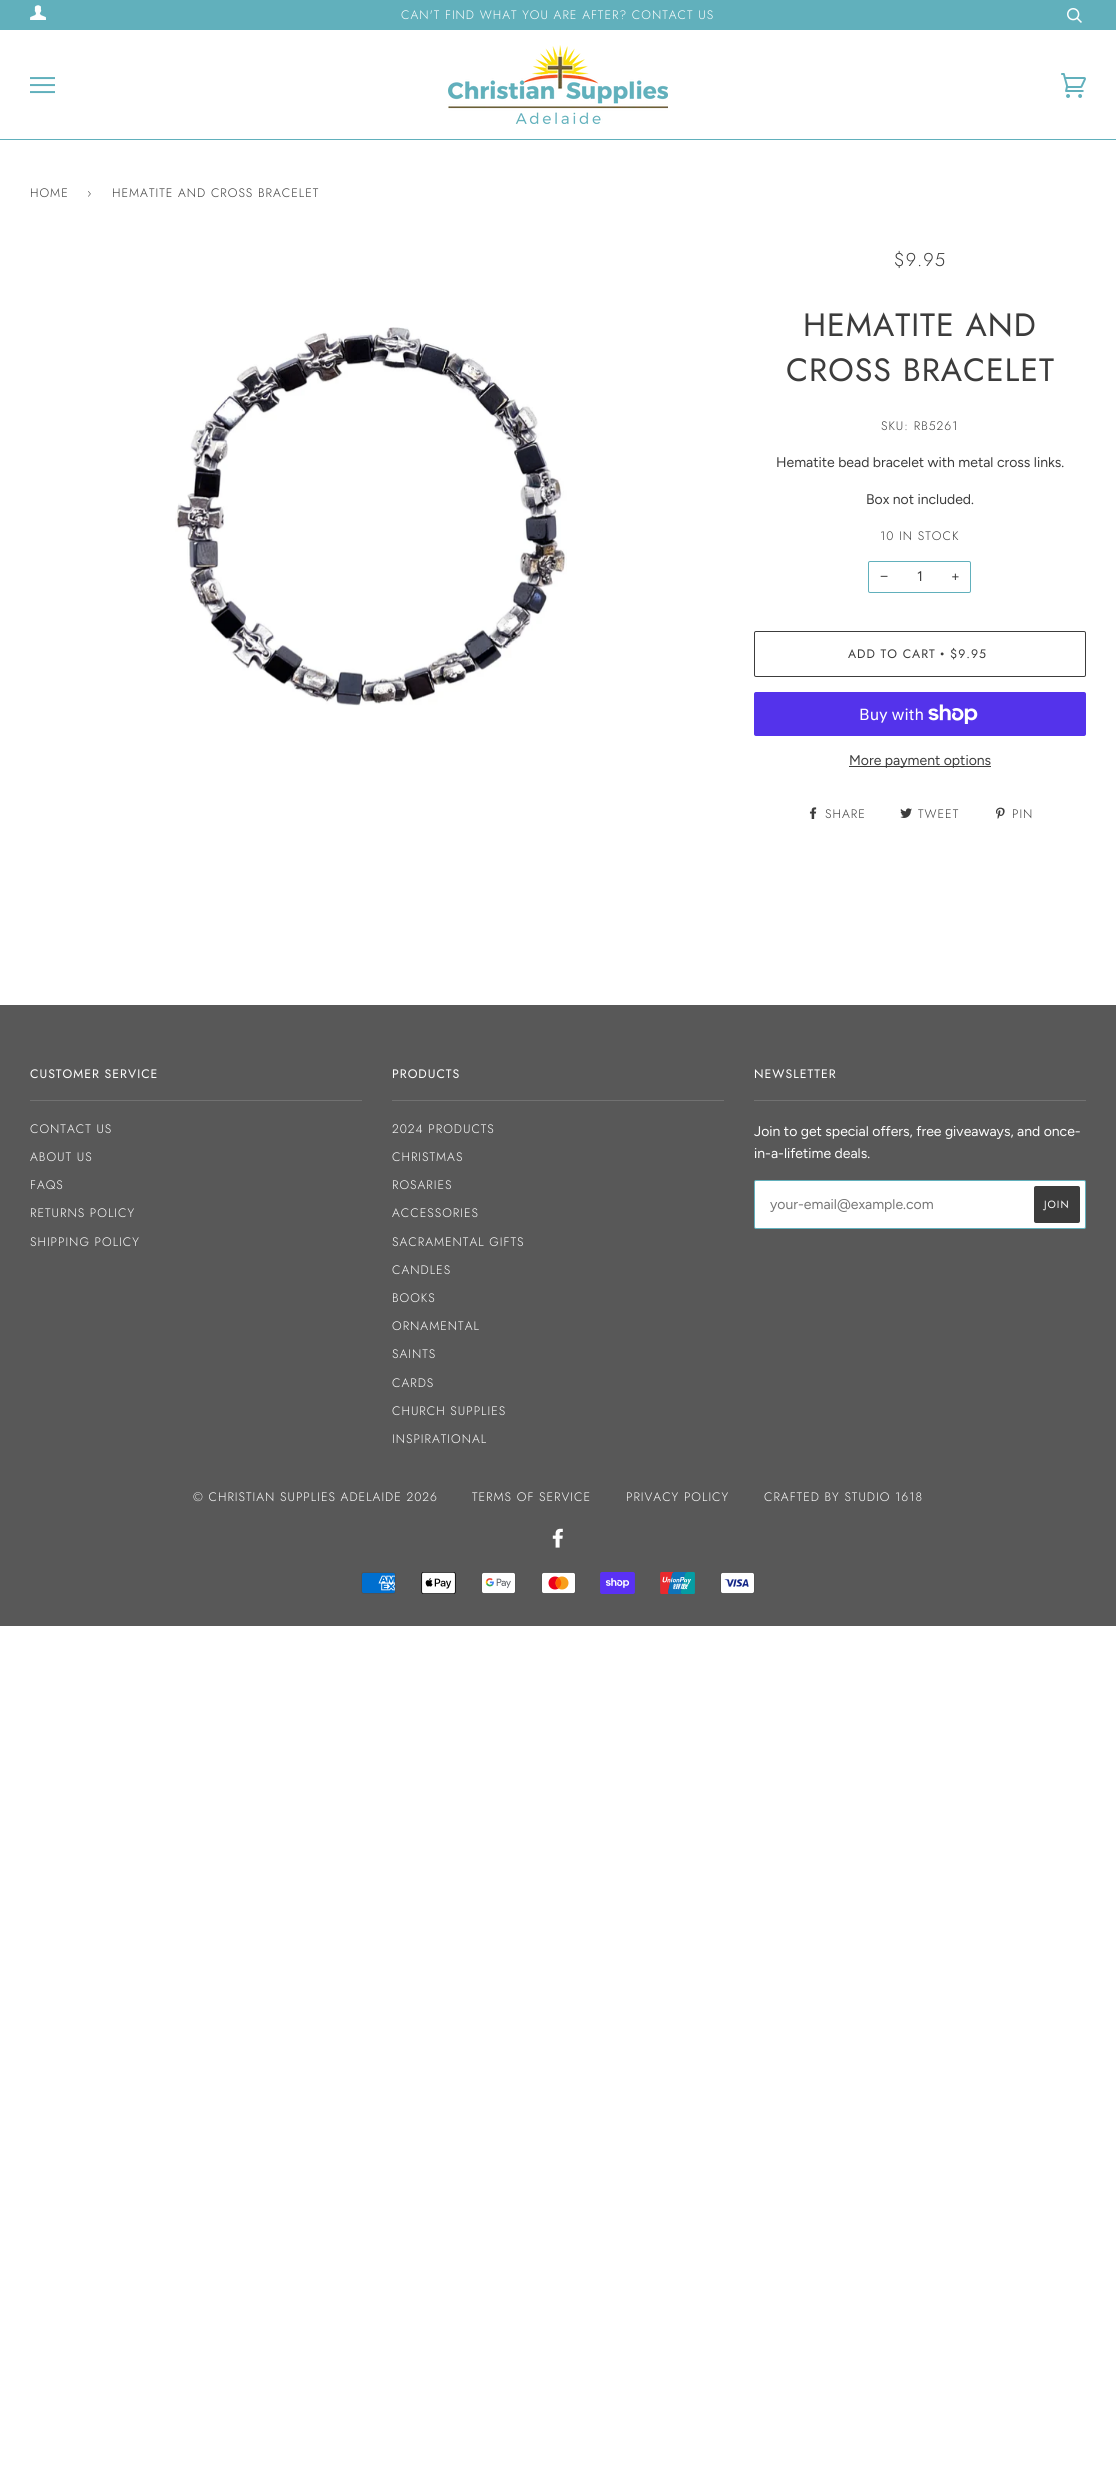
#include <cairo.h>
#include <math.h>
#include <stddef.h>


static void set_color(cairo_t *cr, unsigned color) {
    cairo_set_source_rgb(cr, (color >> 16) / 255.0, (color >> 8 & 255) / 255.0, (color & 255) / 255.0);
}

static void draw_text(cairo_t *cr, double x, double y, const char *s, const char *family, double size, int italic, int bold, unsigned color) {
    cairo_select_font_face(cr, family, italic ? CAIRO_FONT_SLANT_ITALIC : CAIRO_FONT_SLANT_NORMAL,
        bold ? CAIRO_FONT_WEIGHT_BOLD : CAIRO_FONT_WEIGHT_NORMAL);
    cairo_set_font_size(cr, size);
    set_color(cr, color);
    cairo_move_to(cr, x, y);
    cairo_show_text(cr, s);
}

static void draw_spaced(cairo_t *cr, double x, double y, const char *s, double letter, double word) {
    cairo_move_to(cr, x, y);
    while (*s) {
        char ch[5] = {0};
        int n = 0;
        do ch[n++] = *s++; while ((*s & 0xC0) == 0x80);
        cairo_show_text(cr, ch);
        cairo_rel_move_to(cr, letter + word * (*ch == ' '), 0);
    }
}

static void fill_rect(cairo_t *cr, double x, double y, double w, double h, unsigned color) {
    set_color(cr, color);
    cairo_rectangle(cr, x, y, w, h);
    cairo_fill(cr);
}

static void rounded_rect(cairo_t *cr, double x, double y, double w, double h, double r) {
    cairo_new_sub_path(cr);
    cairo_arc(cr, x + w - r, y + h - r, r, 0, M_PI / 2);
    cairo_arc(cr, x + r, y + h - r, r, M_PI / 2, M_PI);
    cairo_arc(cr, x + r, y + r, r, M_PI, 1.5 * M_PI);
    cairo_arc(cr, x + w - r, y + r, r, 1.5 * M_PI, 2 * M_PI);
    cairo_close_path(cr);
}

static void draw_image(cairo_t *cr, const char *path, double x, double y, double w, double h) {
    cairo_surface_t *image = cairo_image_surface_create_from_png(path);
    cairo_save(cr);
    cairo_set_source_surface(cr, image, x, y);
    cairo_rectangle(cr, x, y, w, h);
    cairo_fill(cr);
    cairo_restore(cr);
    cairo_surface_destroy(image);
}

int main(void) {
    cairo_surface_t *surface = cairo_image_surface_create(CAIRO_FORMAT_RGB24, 1116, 2487);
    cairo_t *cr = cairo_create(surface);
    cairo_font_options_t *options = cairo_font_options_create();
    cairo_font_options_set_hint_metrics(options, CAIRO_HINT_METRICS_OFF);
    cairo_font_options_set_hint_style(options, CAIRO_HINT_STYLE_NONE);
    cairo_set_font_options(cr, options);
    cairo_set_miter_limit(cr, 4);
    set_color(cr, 0xFFFFFF);
    cairo_paint(cr);
    fill_rect(cr, 0, 0, 1116, 30, 0x61B0BC);
    draw_image(cr, "assets/img1.png", 30, 5, 16, 15);
    cairo_select_font_face(cr, "Jost Light", CAIRO_FONT_SLANT_NORMAL, CAIRO_FONT_WEIGHT_NORMAL);
    cairo_set_font_size(cr, 12.3);
    set_color(cr, 0xFFFFFF);
    draw_spaced(cr, 401, 19, "CAN'T FIND WHAT YOU ARE AFTER? CONTACT US", 1, 0);
    draw_image(cr, "assets/img2.png", 1067, 8, 15, 15);
    fill_rect(cr, 0, 139, 1116, 1, 0x61B0BC);
    draw_image(cr, "assets/img3.png", 30, 77, 25, 17);
    draw_image(cr, "assets/img4.png", 448, 45, 220, 79);
    draw_image(cr, "assets/img5.png", 1061, 73, 25, 25);
    set_color(cr, 0x3C3C3C);
    draw_spaced(cr, 30, 197, "HOME", 1, 0);
    draw_spaced(cr, 87, 197, "›", 1, 0);
    draw_spaced(cr, 112, 197, "HEMATITE AND CROSS BRACELET", 1, 0);
    draw_image(cr, "assets/img6.png", 175, 327, 392, 379);
    cairo_set_font_size(cr, 18.5);
    draw_spaced(cr, 894, 266, "$9.95", 1, 0);
    cairo_select_font_face(cr, "Jost", CAIRO_FONT_SLANT_NORMAL, CAIRO_FONT_WEIGHT_NORMAL);
    cairo_set_font_size(cr, 32.25);
    draw_spaced(cr, 803, 336, "HEMATITE AND", 1, 0);
    draw_spaced(cr, 786, 381, "CROSS BRACELET", 1, 0);
    cairo_select_font_face(cr, "Jost Light", CAIRO_FONT_SLANT_NORMAL, CAIRO_FONT_WEIGHT_NORMAL);
    cairo_set_font_size(cr, 12.3);
    draw_spaced(cr, 881, 430, "SKU: RB5261", 1, 0);
    draw_text(cr, 776, 467, "Hematite bead bracelet with metal cross links.", "Figtree", 14, 0, 0, 0x3C3C3C);
    draw_text(cr, 866, 504, "Box not included.", "Figtree", 14, 0, 0, 0x3C3C3C);
    cairo_select_font_face(cr, "Jost Light", CAIRO_FONT_SLANT_NORMAL, CAIRO_FONT_WEIGHT_NORMAL);
    cairo_set_font_size(cr, 12.3);
    draw_spaced(cr, 880, 540, "10 IN STOCK", 1, 0);
    rounded_rect(cr, 868.5, 561.5, 102, 31, 1.5);
    set_color(cr, 0x61B0BC);
    cairo_set_line_width(cr, 1);
    cairo_stroke(cr);
    draw_text(cr, 880, 581, "−", "Liberation Sans", 14, 0, 0, 0x3C3C3C);
    draw_text(cr, 917, 581, "1", "Figtree", 14, 0, 0, 0x3C3C3C);
    draw_text(cr, 951, 581, "+", "Figtree", 14, 0, 0, 0x3C3C3C);
    rounded_rect(cr, 754.5, 631.5, 331, 45, 1.5);
    cairo_stroke(cr);
    cairo_select_font_face(cr, "Jost", CAIRO_FONT_SLANT_NORMAL, CAIRO_FONT_WEIGHT_NORMAL);
    cairo_set_font_size(cr, 12.3);
    draw_spaced(cr, 848, 658, "ADD TO CART", 1, 0);
    cairo_select_font_face(cr, "Liberation Serif", CAIRO_FONT_SLANT_NORMAL, CAIRO_FONT_WEIGHT_NORMAL);
    draw_spaced(cr, 940, 658, "•", 1, 0);
    cairo_select_font_face(cr, "Jost", CAIRO_FONT_SLANT_NORMAL, CAIRO_FONT_WEIGHT_NORMAL);
    draw_spaced(cr, 950, 658, "$9.95", 1, 0);
    set_color(cr, 0x5433EB);
    rounded_rect(cr, 754, 692, 332, 44, 2);
    cairo_fill(cr);
    draw_text(cr, 859, 720, "Buy with", "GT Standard", 16, 0, 0, 0xFFFFFF);
    draw_image(cr, "assets/img7.png", 928, 704, 50, 20);
    fill_rect(cr, 849, 766, 142, 1, 0x3C3C3C);
    draw_text(cr, 849, 765, "More payment options", "Figtree", 14, 0, 0, 0x3C3C3C);
    draw_image(cr, "assets/img8.png", 809, 807, 8, 12);
    cairo_select_font_face(cr, "Jost Light", CAIRO_FONT_SLANT_NORMAL, CAIRO_FONT_WEIGHT_NORMAL);
    cairo_set_font_size(cr, 12.3);
    draw_spaced(cr, 825, 818, "SHARE", 1, 0);
    draw_image(cr, "assets/img9.png", 900, 808, 12, 10);
    draw_spaced(cr, 918, 818, "TWEET", 1, 0);
    draw_image(cr, "assets/img10.png", 996, 807, 9, 12);
    draw_spaced(cr, 1012, 818, "PIN", 1, 0);
    fill_rect(cr, 0, 1005, 1116, 621, 0x585858);
    cairo_select_font_face(cr, "Jost", CAIRO_FONT_SLANT_NORMAL, CAIRO_FONT_WEIGHT_NORMAL);
    set_color(cr, 0xFFFFFF);
    draw_spaced(cr, 30, 1078, "CUSTOMER SERVICE", 1, 0);
    fill_rect(cr, 30, 1100, 332, 1, 0x717171);
    cairo_select_font_face(cr, "Jost Light", CAIRO_FONT_SLANT_NORMAL, CAIRO_FONT_WEIGHT_NORMAL);
    set_color(cr, 0xFFFFFF);
    draw_spaced(cr, 30, 1133, "CONTACT US", 1, 0);
    draw_spaced(cr, 30, 1161, "ABOUT US", 1, 0);
    draw_spaced(cr, 30, 1189, "FAQS", 1, 0);
    draw_spaced(cr, 30, 1217, "RETURNS POLICY", 1, 0);
    draw_spaced(cr, 30, 1246, "SHIPPING POLICY", 1, 0);
    cairo_select_font_face(cr, "Jost", CAIRO_FONT_SLANT_NORMAL, CAIRO_FONT_WEIGHT_NORMAL);
    draw_spaced(cr, 392, 1078, "PRODUCTS", 1, 0);
    fill_rect(cr, 392, 1100, 332, 1, 0x717171);
    cairo_select_font_face(cr, "Jost Light", CAIRO_FONT_SLANT_NORMAL, CAIRO_FONT_WEIGHT_NORMAL);
    set_color(cr, 0xFFFFFF);
    draw_spaced(cr, 392, 1133, "2024 PRODUCTS", 1, 0);
    draw_spaced(cr, 392, 1161, "CHRISTMAS", 1, 0);
    draw_spaced(cr, 392, 1189, "ROSARIES", 1, 0);
    draw_spaced(cr, 392, 1217, "ACCESSORIES", 1, 0);
    draw_spaced(cr, 392, 1246, "SACRAMENTAL GIFTS", 1, 0);
    draw_spaced(cr, 392, 1274, "CANDLES", 1, 0);
    draw_spaced(cr, 392, 1302, "BOOKS", 1, 0);
    draw_spaced(cr, 392, 1330, "ORNAMENTAL", 1, 0);
    draw_spaced(cr, 392, 1358, "SAINTS", 1, 0);
    draw_spaced(cr, 392, 1387, "CARDS", 1, 0);
    draw_spaced(cr, 392, 1415, "CHURCH SUPPLIES", 1, 0);
    draw_spaced(cr, 392, 1443, "INSPIRATIONAL", 1, 0);
    cairo_select_font_face(cr, "Jost", CAIRO_FONT_SLANT_NORMAL, CAIRO_FONT_WEIGHT_NORMAL);
    draw_spaced(cr, 754, 1078, "NEWSLETTER", 1, 0);
    fill_rect(cr, 754, 1100, 332, 1, 0x717171);
    draw_text(cr, 754, 1136, "Join to get special offers, free giveaways, and once-", "Figtree", 14, 0, 0, 0xFFFFFF);
    draw_text(cr, 754, 1158, "in-a-lifetime deals.", "Figtree", 14, 0, 0, 0xFFFFFF);
    rounded_rect(cr, 754.5, 1180.5, 331, 48, 1.5);
    cairo_fill_preserve(cr);
    set_color(cr, 0x61B0BC);
    cairo_stroke(cr);
    draw_text(cr, 770, 1209, "your-email@example.com", "Figtree", 14, 0, 0, 0x757575);
    set_color(cr, 0x3C3C3C);
    rounded_rect(cr, 1034, 1186, 46, 37, 2);
    cairo_fill(cr);
    cairo_select_font_face(cr, "Jost", CAIRO_FONT_SLANT_NORMAL, CAIRO_FONT_WEIGHT_NORMAL);
    cairo_set_font_size(cr, 10.5);
    set_color(cr, 0xFFFFFF);
    draw_spaced(cr, 1044, 1208, "JOIN", 1, 0);
    cairo_select_font_face(cr, "Jost Light", CAIRO_FONT_SLANT_NORMAL, CAIRO_FONT_WEIGHT_NORMAL);
    cairo_set_font_size(cr, 12.3);
    draw_spaced(cr, 193, 1501, "© CHRISTIAN SUPPLIES ADELAIDE 2026", 1, 0);
    draw_spaced(cr, 472, 1501, "TERMS OF SERVICE", 1, 0);
    draw_spaced(cr, 626, 1501, "PRIVACY POLICY", 1, 0);
    draw_spaced(cr, 764, 1501, "CRAFTED BY STUDIO 1618", 1, 0);
    draw_image(cr, "assets/img11.png", 552, 1528, 11, 20);
    draw_image(cr, "assets/img12.png", 361, 1572, 35, 22);
    draw_image(cr, "assets/img13.png", 421, 1572, 35, 22);
    draw_image(cr, "assets/img14.png", 481, 1572, 35, 22);
    draw_image(cr, "assets/img15.png", 541, 1572, 35, 22);
    draw_image(cr, "assets/img16.png", 600, 1572, 35, 22);
    draw_image(cr, "assets/img17.png", 660, 1572, 35, 22);
    draw_image(cr, "assets/img18.png", 720, 1572, 35, 22);
    cairo_surface_write_to_png(surface, "output.png");
    cairo_font_options_destroy(options);
    cairo_destroy(cr);
    cairo_surface_destroy(surface);
    return 0;
}
